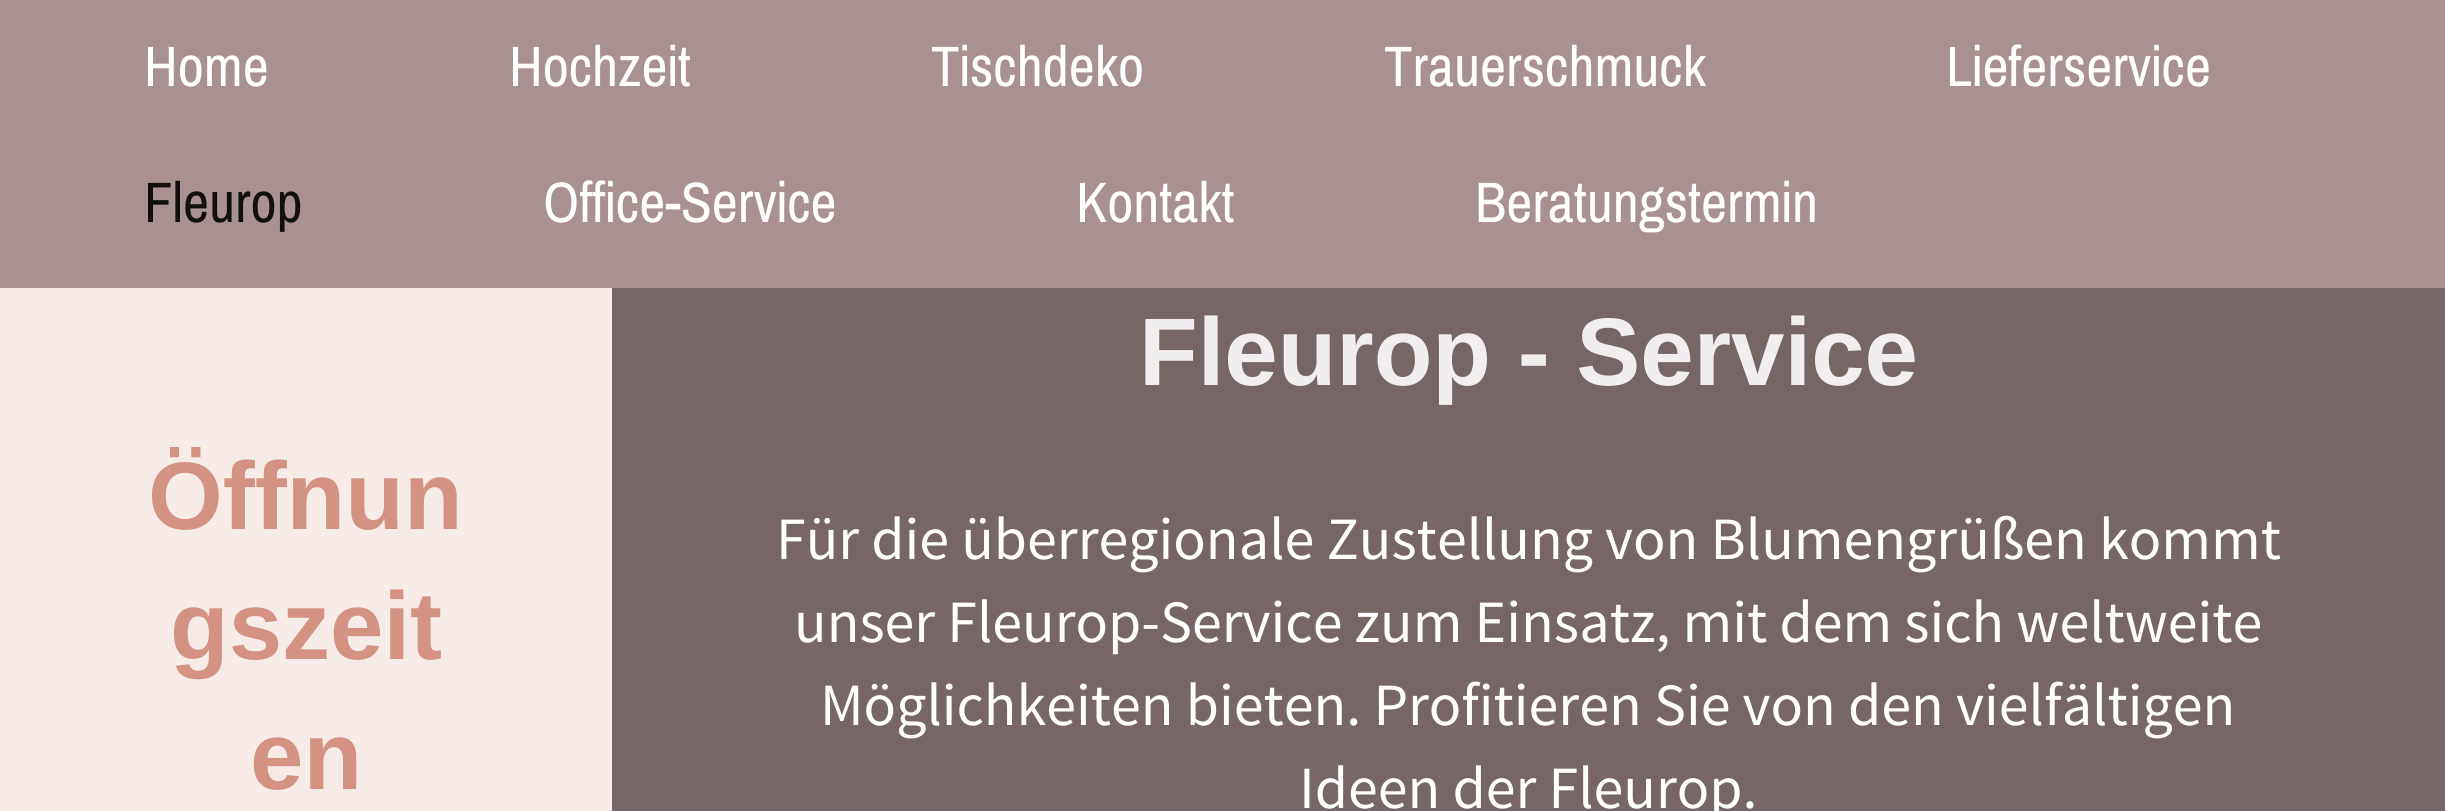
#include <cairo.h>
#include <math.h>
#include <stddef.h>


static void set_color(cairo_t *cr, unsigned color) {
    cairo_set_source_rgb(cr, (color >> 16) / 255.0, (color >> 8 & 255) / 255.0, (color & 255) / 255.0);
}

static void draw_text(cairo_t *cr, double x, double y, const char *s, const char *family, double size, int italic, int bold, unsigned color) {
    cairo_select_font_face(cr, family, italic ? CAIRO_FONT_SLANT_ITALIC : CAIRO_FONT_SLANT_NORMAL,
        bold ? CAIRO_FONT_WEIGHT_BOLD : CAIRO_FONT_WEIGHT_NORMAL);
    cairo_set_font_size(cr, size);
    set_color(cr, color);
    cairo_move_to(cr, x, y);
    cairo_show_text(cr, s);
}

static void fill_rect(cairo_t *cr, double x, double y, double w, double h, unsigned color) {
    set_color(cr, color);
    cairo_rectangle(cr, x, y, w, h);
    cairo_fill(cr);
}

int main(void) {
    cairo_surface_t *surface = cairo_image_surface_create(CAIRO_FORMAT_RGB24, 2445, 811);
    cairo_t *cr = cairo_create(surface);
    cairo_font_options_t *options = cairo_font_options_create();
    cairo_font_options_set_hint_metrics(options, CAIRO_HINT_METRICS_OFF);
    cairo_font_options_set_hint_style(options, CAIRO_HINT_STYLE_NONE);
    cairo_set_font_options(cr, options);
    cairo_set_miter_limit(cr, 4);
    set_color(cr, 0xF7EBE8);
    cairo_paint(cr);
    fill_rect(cr, 0, 0, 2445, 288, 0xA99191);
    draw_text(cr, 144, 86, "Home", "Archivo Narrow", 57, 0, 0, 0xFFFFFF);
    draw_text(cr, 509, 86, "Hochzeit", "Archivo Narrow", 57, 0, 0, 0xFFFFFF);
    draw_text(cr, 931, 86, "Tischdeko", "Archivo Narrow", 57, 0, 0, 0xFFFFFF);
    draw_text(cr, 1384, 86, "Trauerschmuck", "Archivo Narrow", 57, 0, 0, 0xFFFFFF);
    draw_text(cr, 1946, 86, "Lieferservice", "Archivo Narrow", 57, 0, 0, 0xFFFFFF);
    draw_text(cr, 144, 222, "Fleurop", "Archivo Narrow", 57, 0, 0, 0x110F0F);
    draw_text(cr, 543, 222, "Office-Service", "Archivo Narrow", 57, 0, 0, 0xFFFFFF);
    draw_text(cr, 1076, 222, "Kontakt", "Archivo Narrow", 57, 0, 0, 0xFFFFFF);
    draw_text(cr, 1475, 222, "Beratungstermin", "Archivo Narrow", 57, 0, 0, 0xFFFFFF);
    draw_text(cr, 148, 529, "Öffnun", "Liberation Sans", 96, 0, 1, 0xD39282);
    draw_text(cr, 170, 659, "gszeit", "Liberation Sans", 96, 0, 1, 0xD39282);
    draw_text(cr, 250, 789, "en", "Liberation Sans", 96, 0, 1, 0xD39282);
    fill_rect(cr, 612, 288, 1833, 523, 0x766665);
    draw_text(cr, 1139, 385, "Fleurop - Service", "Liberation Sans", 96, 0, 1, 0xF0EEEE);
    draw_text(cr, 776, 559, "Für die überregionale Zustellung von Blumengrüßen kommt", "Source Sans Pro", 60, 0, 0, 0xFFFFFF);
    draw_text(cr, 794, 642, "unser Fleurop-Service zum Einsatz, mit dem sich weltweite", "Source Sans Pro", 60, 0, 0, 0xFFFFFF);
    draw_text(cr, 820, 725, "Möglichkeiten bieten. Profitieren Sie von den vielfältigen", "Source Sans Pro", 60, 0, 0, 0xFFFFFF);
    draw_text(cr, 1299, 808, "Ideen der Fleurop.", "Source Sans Pro", 60, 0, 0, 0xFFFFFF);
    cairo_surface_write_to_png(surface, "output.png");
    cairo_font_options_destroy(options);
    cairo_destroy(cr);
    cairo_surface_destroy(surface);
    return 0;
}
